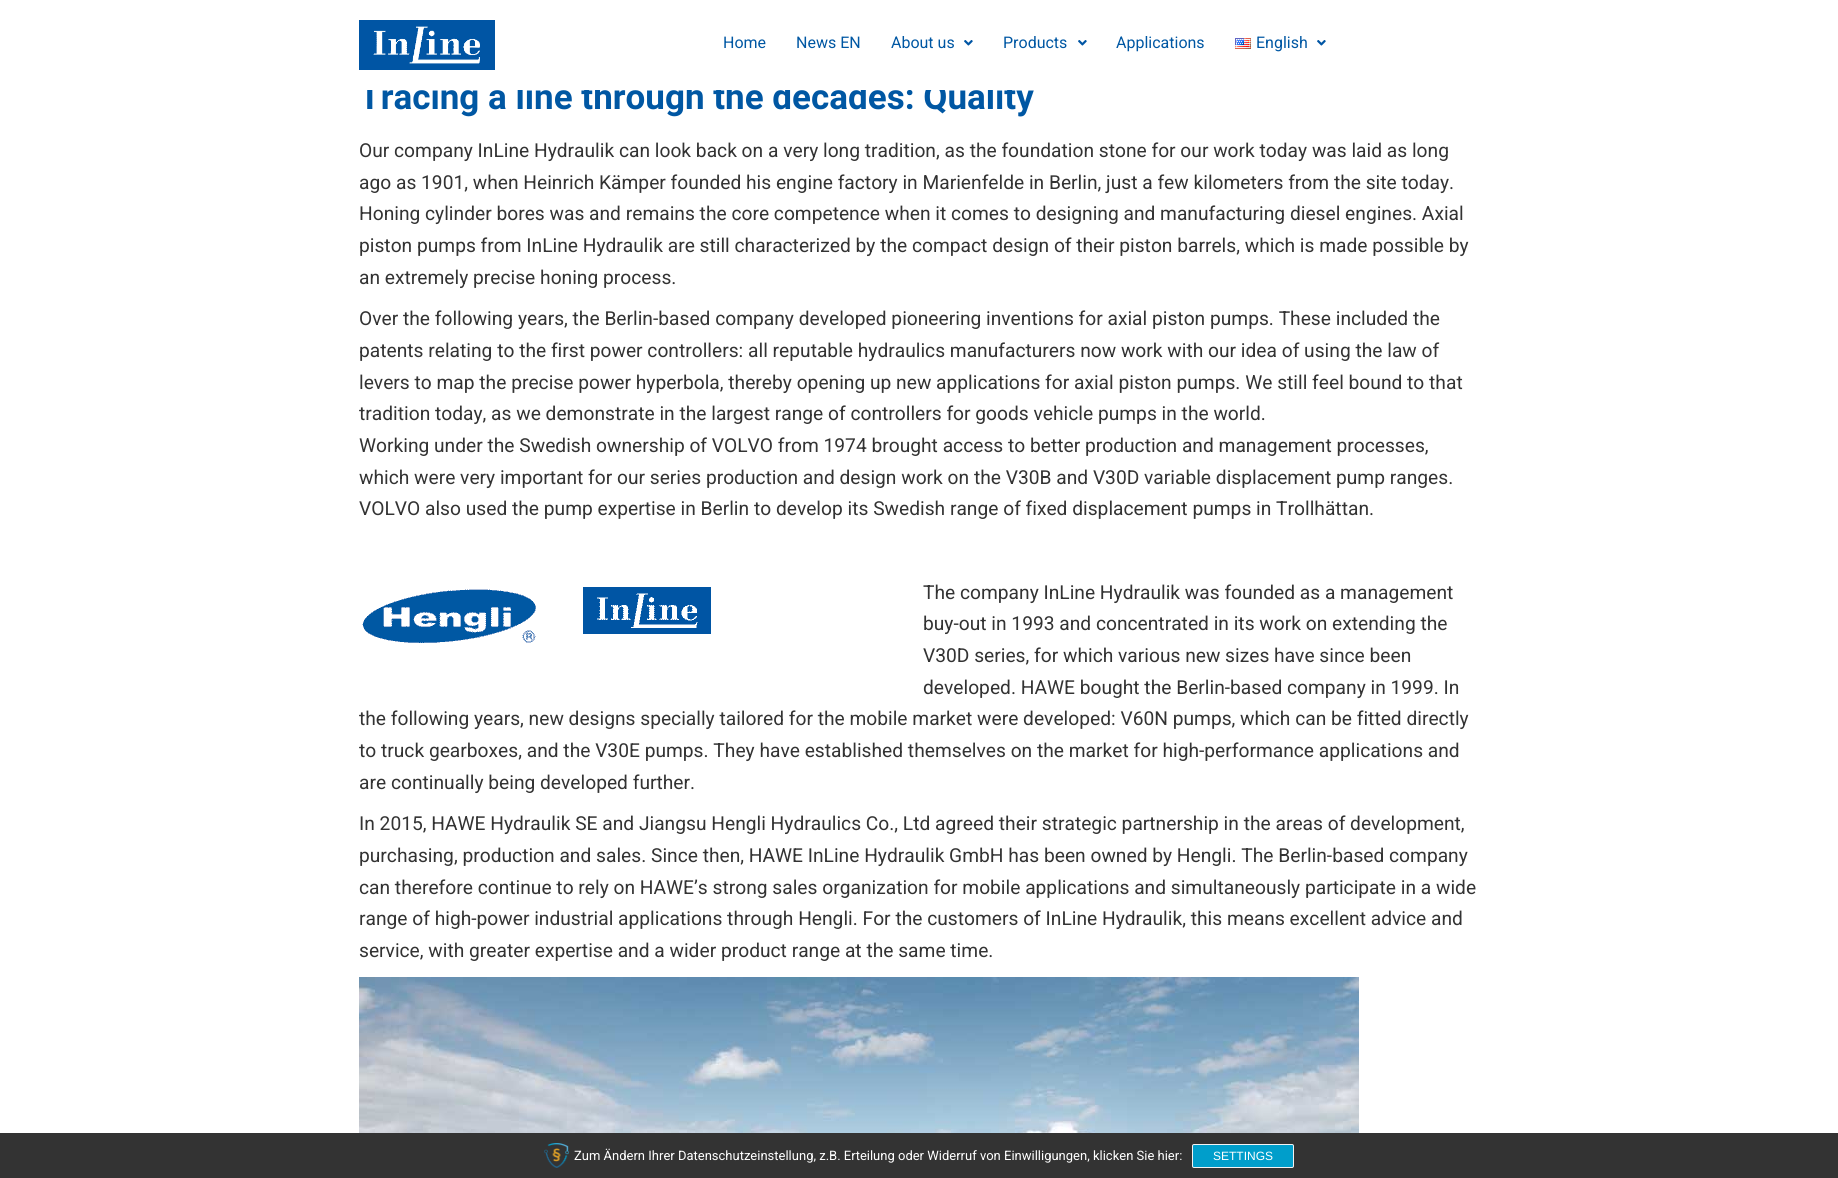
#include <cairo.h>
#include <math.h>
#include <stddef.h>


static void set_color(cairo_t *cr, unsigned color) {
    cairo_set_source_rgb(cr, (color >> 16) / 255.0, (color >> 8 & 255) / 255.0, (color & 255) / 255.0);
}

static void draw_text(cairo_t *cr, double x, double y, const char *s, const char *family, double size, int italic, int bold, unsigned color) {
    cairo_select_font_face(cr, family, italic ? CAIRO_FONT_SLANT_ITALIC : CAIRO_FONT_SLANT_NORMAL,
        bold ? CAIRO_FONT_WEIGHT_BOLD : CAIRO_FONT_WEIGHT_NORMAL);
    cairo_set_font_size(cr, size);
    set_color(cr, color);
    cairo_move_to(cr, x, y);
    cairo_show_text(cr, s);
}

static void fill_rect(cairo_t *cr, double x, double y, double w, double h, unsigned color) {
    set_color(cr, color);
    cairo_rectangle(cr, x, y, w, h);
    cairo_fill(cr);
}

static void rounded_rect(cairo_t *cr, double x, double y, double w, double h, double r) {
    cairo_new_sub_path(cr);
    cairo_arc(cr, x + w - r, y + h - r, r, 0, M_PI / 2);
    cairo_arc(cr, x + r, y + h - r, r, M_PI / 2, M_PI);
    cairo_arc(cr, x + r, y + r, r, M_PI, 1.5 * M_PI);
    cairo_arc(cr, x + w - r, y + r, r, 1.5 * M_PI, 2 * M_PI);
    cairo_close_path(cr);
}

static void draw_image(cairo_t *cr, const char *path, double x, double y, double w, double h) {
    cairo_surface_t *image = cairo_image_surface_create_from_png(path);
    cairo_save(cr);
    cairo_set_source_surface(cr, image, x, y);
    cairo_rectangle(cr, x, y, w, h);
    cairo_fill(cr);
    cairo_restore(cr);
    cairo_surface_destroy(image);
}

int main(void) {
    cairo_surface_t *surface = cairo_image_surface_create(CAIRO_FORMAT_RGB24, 1838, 1178);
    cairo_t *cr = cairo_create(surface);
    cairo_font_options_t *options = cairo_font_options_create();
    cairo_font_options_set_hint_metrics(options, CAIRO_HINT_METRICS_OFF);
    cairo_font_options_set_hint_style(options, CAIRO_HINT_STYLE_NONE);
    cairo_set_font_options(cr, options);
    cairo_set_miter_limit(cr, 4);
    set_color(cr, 0xFFFFFF);
    cairo_paint(cr);
    draw_text(cr, 359, 109, "Tracing a line through the decades: Quality", "Roboto", 35, 0, 1, 0x0057A3);
    fill_rect(cr, 359, 82, 654, 8, 0xFFFFFF);
    draw_image(cr, "assets/img1.png", 359, 20, 136, 50);
    draw_text(cr, 723, 48, "Home", "Roboto", 16, 0, 0, 0x0057A3);
    draw_text(cr, 796, 48, "News EN", "Roboto", 16, 0, 0, 0x0057A3);
    draw_text(cr, 891, 48, "About us", "Roboto", 16, 0, 0, 0x0057A3);
    draw_image(cr, "assets/img2.png", 964, 40, 9, 6);
    draw_text(cr, 1003, 48, "Products", "Roboto", 16, 0, 0, 0x0057A3);
    draw_image(cr, "assets/img2.png", 1078, 40, 9, 6);
    draw_text(cr, 1116, 48, "Applications", "Roboto", 16, 0, 0, 0x0057A3);
    draw_image(cr, "assets/img3.png", 1235, 38, 16, 11);
    draw_text(cr, 1256, 48, "English", "Roboto", 16, 0, 0, 0x0057A3);
    draw_image(cr, "assets/img2.png", 1317, 40, 9, 6);
    draw_text(cr, 359, 157, "Our company InLine Hydraulik can look back on a very long tradition, as the foundation stone for our work today was laid as long", "Roboto", 19.2, 0, 0, 0x333333);
    draw_text(cr, 359, 189, "ago as 1901, when Heinrich Kämper founded his engine factory in Marienfelde in Berlin, just a few kilometers from the site today.", "Roboto", 19.2, 0, 0, 0x333333);
    draw_text(cr, 359, 220, "Honing cylinder bores was and remains the core competence when it comes to designing and manufacturing diesel engines. Axial", "Roboto", 19.2, 0, 0, 0x333333);
    draw_text(cr, 359, 252, "piston pumps from InLine Hydraulik are still characterized by the compact design of their piston barrels, which is made possible by", "Roboto", 19.2, 0, 0, 0x333333);
    draw_text(cr, 359, 284, "an extremely precise honing process.", "Roboto", 19.2, 0, 0, 0x333333);
    draw_text(cr, 359, 325, "Over the following years, the Berlin-based company developed pioneering inventions for axial piston pumps. These included the", "Roboto", 19.2, 0, 0, 0x333333);
    draw_text(cr, 359, 357, "patents relating to the first power controllers: all reputable hydraulics manufacturers now work with our idea of using the law of", "Roboto", 19.2, 0, 0, 0x333333);
    draw_text(cr, 359, 389, "levers to map the precise power hyperbola, thereby opening up new applications for axial piston pumps. We still feel bound to that", "Roboto", 19.2, 0, 0, 0x333333);
    draw_text(cr, 359, 420, "tradition today, as we demonstrate in the largest range of controllers for goods vehicle pumps in the world.", "Roboto", 19.2, 0, 0, 0x333333);
    draw_text(cr, 359, 452, "Working under the Swedish ownership of VOLVO from 1974 brought access to better production and management processes,", "Roboto", 19.2, 0, 0, 0x333333);
    draw_text(cr, 359, 484, "which were very important for our series production and design work on the V30B and V30D variable displacement pump ranges.", "Roboto", 19.2, 0, 0, 0x333333);
    draw_text(cr, 359, 515, "VOLVO also used the pump expertise in Berlin to develop its Swedish range of fixed displacement pumps in Trollhättan.", "Roboto", 19.2, 0, 0, 0x333333);
    draw_text(cr, 923, 599, "The company InLine Hydraulik was founded as a management", "Roboto", 19.2, 0, 0, 0x333333);
    draw_text(cr, 923, 630, "buy-out in 1993 and concentrated in its work on extending the", "Roboto", 19.2, 0, 0, 0x333333);
    draw_text(cr, 923, 662, "V30D series, for which various new sizes have since been", "Roboto", 19.2, 0, 0, 0x333333);
    draw_text(cr, 923, 694, "developed. HAWE bought the Berlin-based company in 1999. In", "Roboto", 19.2, 0, 0, 0x333333);
    draw_text(cr, 359, 725, "the following years, new designs specially tailored for the mobile market were developed: V60N pumps, which can be fitted directly", "Roboto", 19.2, 0, 0, 0x333333);
    draw_text(cr, 359, 757, "to truck gearboxes, and the V30E pumps. They have established themselves on the market for high-performance applications and", "Roboto", 19.2, 0, 0, 0x333333);
    draw_text(cr, 359, 789, "are continually being developed further.", "Roboto", 19.2, 0, 0, 0x333333);
    draw_image(cr, "assets/img4.png", 362, 589, 174, 54);
    draw_image(cr, "assets/img5.png", 583, 587, 128, 47);
    draw_text(cr, 359, 830, "In 2015, HAWE Hydraulik SE and Jiangsu Hengli Hydraulics Co., Ltd agreed their strategic partnership in the areas of development,", "Roboto", 19.2, 0, 0, 0x333333);
    draw_text(cr, 359, 862, "purchasing, production and sales. Since then, HAWE InLine Hydraulik GmbH has been owned by Hengli. The Berlin-based company", "Roboto", 19.2, 0, 0, 0x333333);
    draw_text(cr, 359, 894, "can therefore continue to rely on HAWE’s strong sales organization for mobile applications and simultaneously participate in a wide", "Roboto", 19.2, 0, 0, 0x333333);
    draw_text(cr, 359, 925, "range of high-power industrial applications through Hengli. For the customers of InLine Hydraulik, this means excellent advice and", "Roboto", 19.2, 0, 0, 0x333333);
    draw_text(cr, 359, 957, "service, with greater expertise and a wider product range at the same time.", "Roboto", 19.2, 0, 0, 0x333333);
    draw_image(cr, "assets/img6.png", 359, 977, 1000, 156);
    fill_rect(cr, 0, 1133, 1838, 45, 0x333333);
    draw_image(cr, "assets/img7.png", 544, 1143, 25, 25);
    draw_text(cr, 574, 1160, "Zum Ändern Ihrer Datenschutzeinstellung, z.B. Erteilung oder Widerruf von Einwilligungen, klicken Sie hier:", "Roboto", 13, 0, 0, 0xFFFFFF);
    set_color(cr, 0x009ECB);
    rounded_rect(cr, 1192.5, 1144.5, 101, 23, 1.5);
    cairo_fill_preserve(cr);
    set_color(cr, 0xF3F3F3);
    cairo_set_line_width(cr, 1);
    cairo_stroke(cr);
    draw_text(cr, 1213, 1160, "SETTINGS", "Liberation Sans", 12, 0, 0, 0xFFFFFF);
    cairo_surface_write_to_png(surface, "output.png");
    cairo_font_options_destroy(options);
    cairo_destroy(cr);
    cairo_surface_destroy(surface);
    return 0;
}
